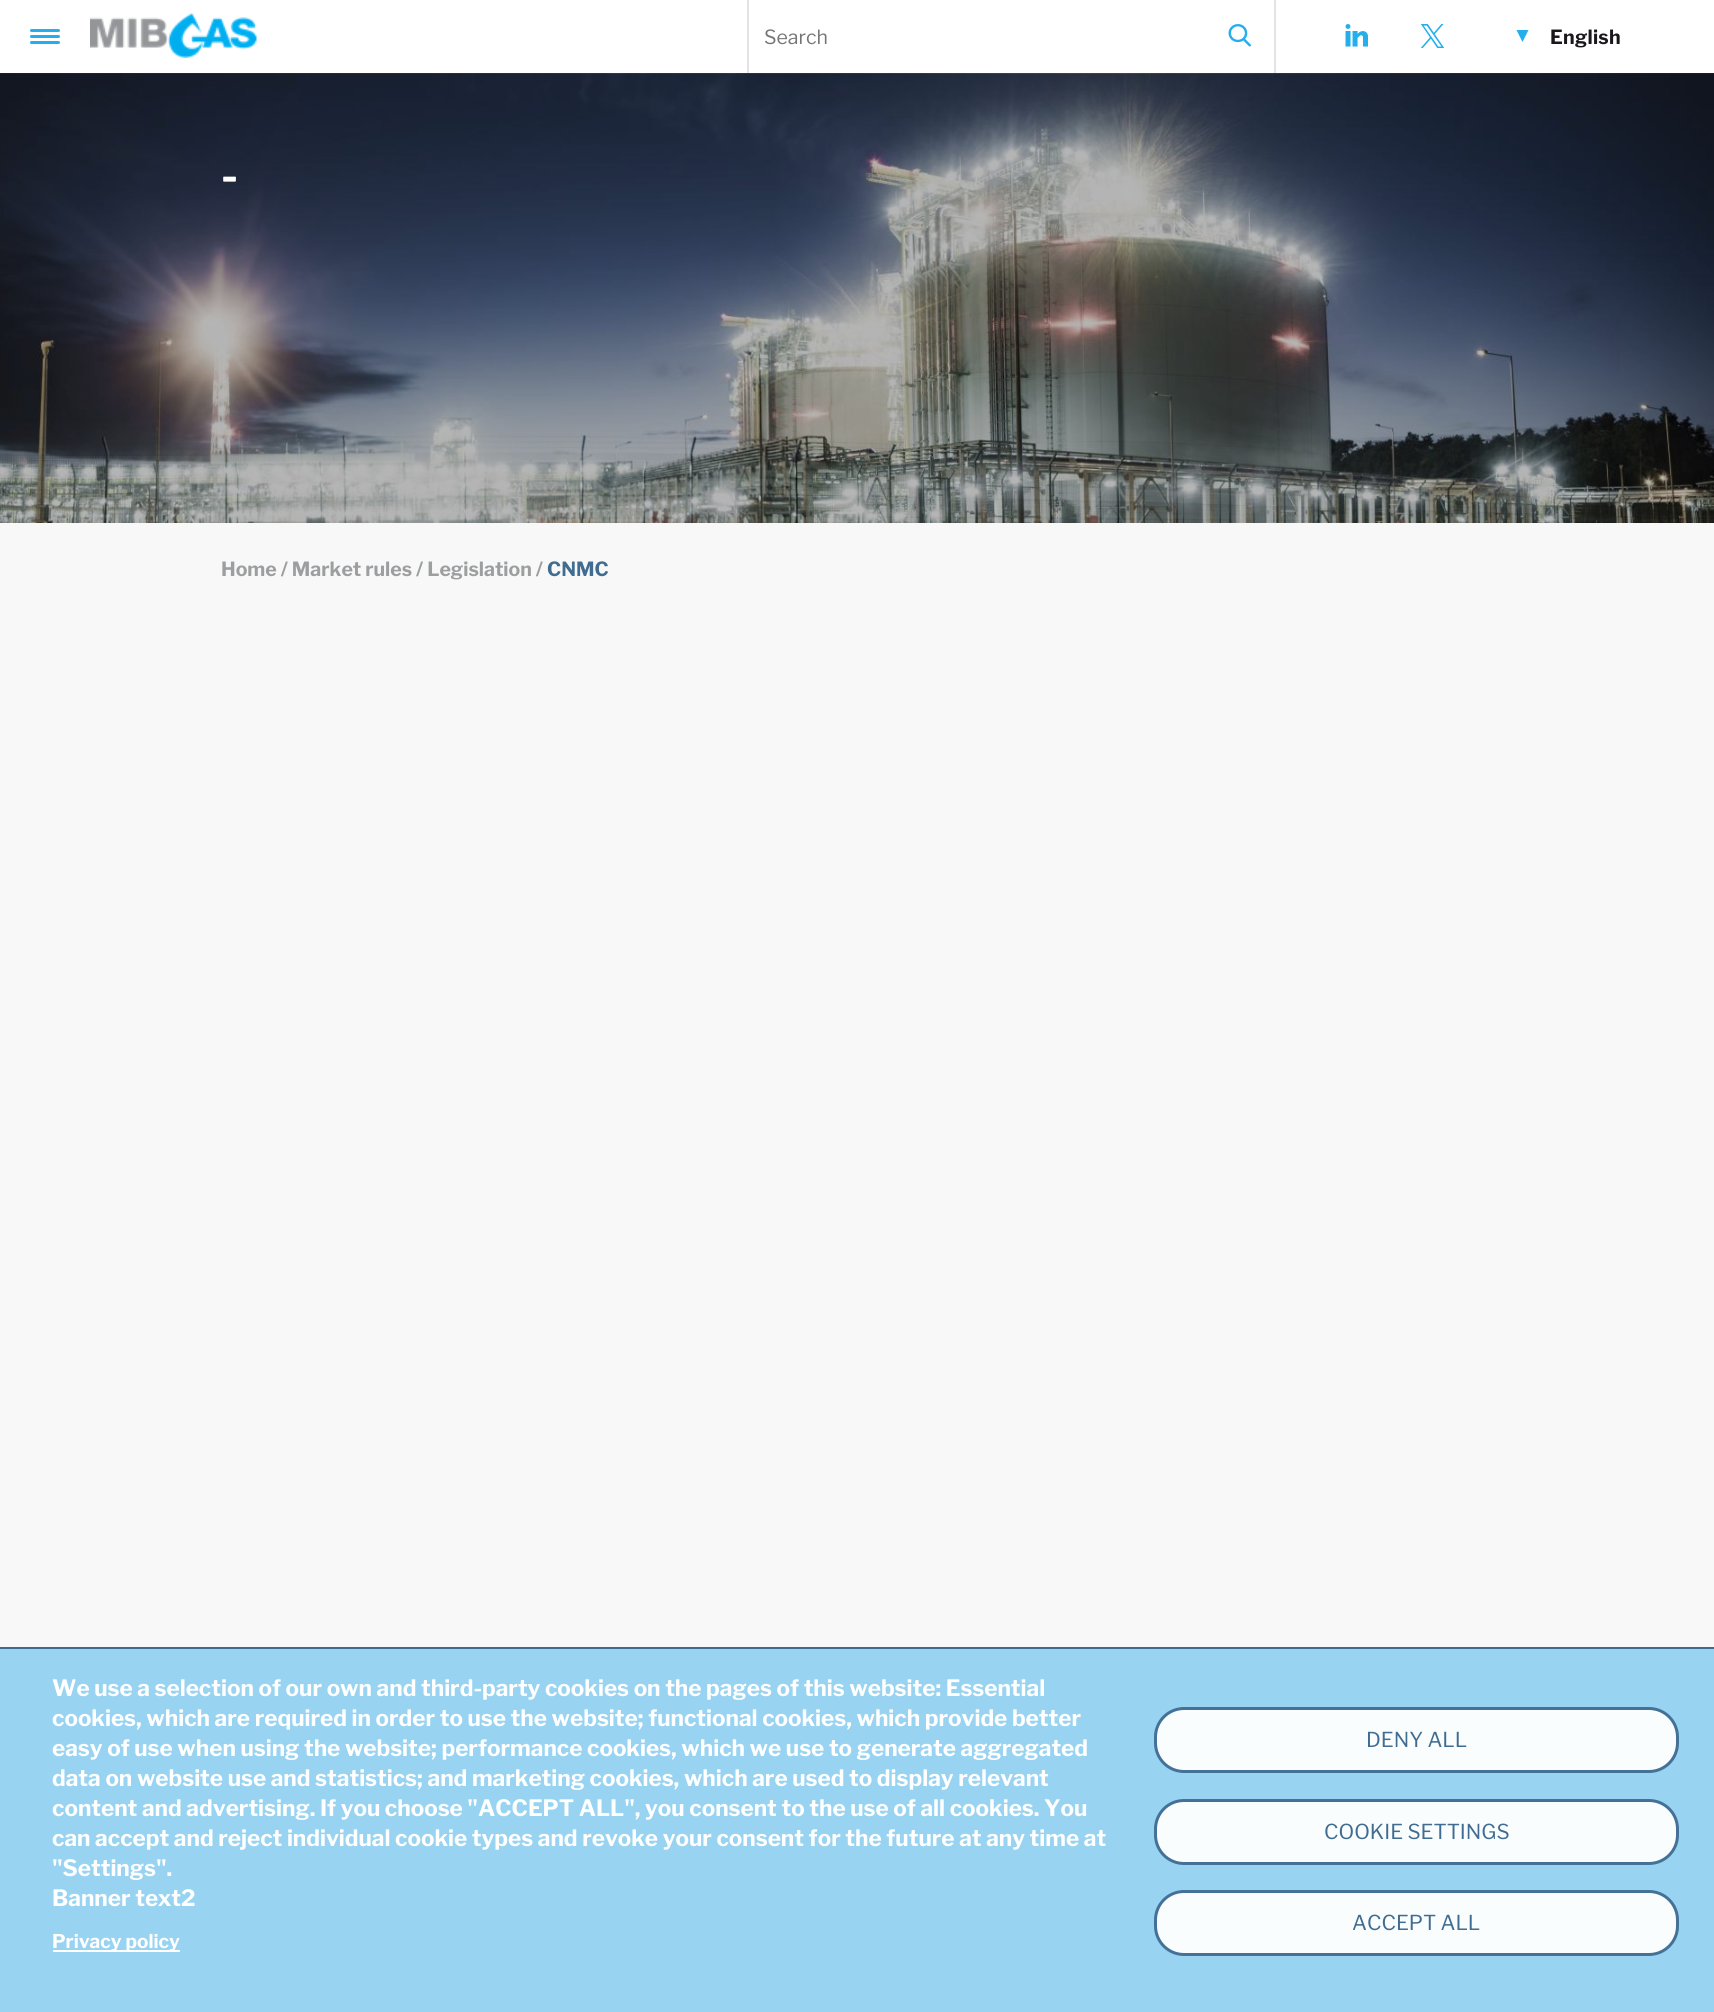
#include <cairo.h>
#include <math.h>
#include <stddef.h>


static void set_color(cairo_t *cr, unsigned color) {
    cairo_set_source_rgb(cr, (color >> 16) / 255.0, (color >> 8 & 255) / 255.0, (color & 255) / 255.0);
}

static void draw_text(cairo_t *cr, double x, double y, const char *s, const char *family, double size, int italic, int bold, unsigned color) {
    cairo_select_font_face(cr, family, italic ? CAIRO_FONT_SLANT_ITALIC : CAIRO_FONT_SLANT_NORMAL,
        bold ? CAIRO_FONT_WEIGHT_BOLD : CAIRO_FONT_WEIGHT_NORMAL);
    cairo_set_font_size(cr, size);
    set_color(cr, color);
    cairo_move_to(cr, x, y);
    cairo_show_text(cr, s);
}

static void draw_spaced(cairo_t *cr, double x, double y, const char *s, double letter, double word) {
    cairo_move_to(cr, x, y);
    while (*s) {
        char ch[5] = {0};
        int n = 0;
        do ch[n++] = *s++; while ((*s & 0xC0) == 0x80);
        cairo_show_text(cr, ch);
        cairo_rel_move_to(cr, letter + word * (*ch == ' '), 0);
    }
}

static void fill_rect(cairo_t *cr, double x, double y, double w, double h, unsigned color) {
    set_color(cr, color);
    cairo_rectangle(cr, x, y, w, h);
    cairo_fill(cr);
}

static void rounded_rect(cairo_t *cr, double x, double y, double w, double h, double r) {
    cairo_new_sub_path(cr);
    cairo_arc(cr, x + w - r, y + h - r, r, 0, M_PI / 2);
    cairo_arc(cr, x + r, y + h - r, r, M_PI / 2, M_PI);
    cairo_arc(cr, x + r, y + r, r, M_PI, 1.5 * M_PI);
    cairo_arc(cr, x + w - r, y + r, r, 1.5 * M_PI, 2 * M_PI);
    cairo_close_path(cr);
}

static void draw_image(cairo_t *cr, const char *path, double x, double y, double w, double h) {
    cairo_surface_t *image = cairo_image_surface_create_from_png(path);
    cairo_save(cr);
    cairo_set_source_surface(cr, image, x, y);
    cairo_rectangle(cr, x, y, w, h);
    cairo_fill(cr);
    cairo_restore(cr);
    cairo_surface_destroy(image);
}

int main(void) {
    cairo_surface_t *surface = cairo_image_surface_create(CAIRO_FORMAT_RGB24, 1714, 2012);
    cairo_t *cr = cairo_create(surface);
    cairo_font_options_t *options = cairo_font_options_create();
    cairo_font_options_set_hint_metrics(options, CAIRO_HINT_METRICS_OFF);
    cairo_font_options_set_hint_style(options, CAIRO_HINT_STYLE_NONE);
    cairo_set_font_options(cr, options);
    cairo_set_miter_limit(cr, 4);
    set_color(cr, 0xFFFFFF);
    cairo_paint(cr);
    set_color(cr, 0x24AFEC);
    rounded_rect(cr, 30, 35, 30, 3, 1.5);
    cairo_fill(cr);
    rounded_rect(cr, 30, 29, 30, 3, 1.5);
    cairo_fill(cr);
    rounded_rect(cr, 30, 41, 30, 3, 1.5);
    cairo_fill(cr);
    draw_image(cr, "assets/img1.png", 90, 13, 167, 45);
    fill_rect(cr, 1274, 0, 2, 74, 0xE3E4E4);
    fill_rect(cr, 747, 0, 2, 74, 0xE3E4E4);
    draw_text(cr, 764, 44, "Search", "Libre Franklin", 19.5, 0, 0, 0x757575);
    draw_image(cr, "assets/img2.png", 1228, 24, 23, 23);
    draw_image(cr, "assets/img3.png", 1345, 24, 23, 23);
    draw_image(cr, "assets/img4.png", 1420, 24, 25, 24);
    set_color(cr, 0x24AFEC);
    cairo_new_path(cr);
    cairo_move_to(cr, 1516.5, 30);
    cairo_line_to(cr, 1528.5, 30);
    cairo_line_to(cr, 1522.5, 42);
    cairo_close_path(cr);
    cairo_fill(cr);
    cairo_select_font_face(cr, "Libre Franklin", CAIRO_FONT_SLANT_NORMAL, CAIRO_FONT_WEIGHT_BOLD);
    set_color(cr, 0x1A171B);
    draw_spaced(cr, 1550, 44, "English", 0.25, 0);
    fill_rect(cr, 0, 523, 1714, 1124, 0xF8F8F8);
    draw_image(cr, "assets/img5.png", 0, 73, 1714, 450);
    draw_text(cr, 221, 191, "-", "Libre Franklin", 45, 0, 1, 0xFFFFFF);
    draw_text(cr, 221, 576, "Home / Market rules / Legislation /", "Libre Franklin", 19.5, 0, 1, 0x9C9E9F);
    draw_text(cr, 547, 576, "CNMC", "Libre Franklin", 19.5, 0, 1, 0x406C91);
    fill_rect(cr, 0, 1649, 1714, 363, 0x98D3F2);
    fill_rect(cr, 0, 1647, 1714, 2, 0x406C91);
    draw_text(cr, 52, 1696, "We use a selection of our own and third-party cookies on the pages of this website: Essential", "Libre Franklin", 22.5, 0, 1, 0xFFFFFF);
    draw_text(cr, 52, 1726, "cookies, which are required in order to use the website; functional cookies, which provide better", "Libre Franklin", 22.5, 0, 1, 0xFFFFFF);
    draw_text(cr, 52, 1756, "easy of use when using the website; performance cookies, which we use to generate aggregated", "Libre Franklin", 22.5, 0, 1, 0xFFFFFF);
    draw_text(cr, 52, 1786, "data on website use and statistics; and marketing cookies, which are used to display relevant", "Libre Franklin", 22.5, 0, 1, 0xFFFFFF);
    draw_text(cr, 52, 1816, "content and advertising. If you choose \"ACCEPT ALL\", you consent to the use of all cookies. You", "Libre Franklin", 22.5, 0, 1, 0xFFFFFF);
    draw_text(cr, 52, 1846, "can accept and reject individual cookie types and revoke your consent for the future at any time at", "Libre Franklin", 22.5, 0, 1, 0xFFFFFF);
    draw_text(cr, 52, 1876, "\"Settings\".", "Libre Franklin", 22.5, 0, 1, 0xFFFFFF);
    draw_text(cr, 52, 1906, "Banner text2", "Libre Franklin", 22.5, 0, 1, 0xFFFFFF);
    fill_rect(cr, 53, 1950, 127, 2, 0xFFFFFF);
    draw_text(cr, 52, 1948, "Privacy policy", "Libre Franklin", 19, 0, 1, 0xFFFFFF);
    set_color(cr, 0xFAFDFE);
    rounded_rect(cr, 1155.5, 1708.5, 522, 63, 28.5);
    cairo_fill_preserve(cr);
    set_color(cr, 0x447196);
    cairo_set_line_width(cr, 3);
    cairo_stroke(cr);
    draw_text(cr, 1366, 1747, "DENY ALL", "Libre Franklin", 20.5, 0, 0, 0x406C91);
    set_color(cr, 0xFAFDFE);
    rounded_rect(cr, 1155.5, 1800.5, 522, 63, 28.5);
    cairo_fill_preserve(cr);
    set_color(cr, 0x447196);
    cairo_stroke(cr);
    draw_text(cr, 1324, 1839, "COOKIE SETTINGS", "Libre Franklin", 20.5, 0, 0, 0x406C91);
    set_color(cr, 0xFAFDFE);
    rounded_rect(cr, 1155.5, 1891.5, 522, 63, 28.5);
    cairo_fill_preserve(cr);
    set_color(cr, 0x447196);
    cairo_stroke(cr);
    draw_text(cr, 1352, 1930, "ACCEPT ALL", "Libre Franklin", 20.5, 0, 0, 0x406C91);
    cairo_surface_write_to_png(surface, "output.png");
    cairo_font_options_destroy(options);
    cairo_destroy(cr);
    cairo_surface_destroy(surface);
    return 0;
}
